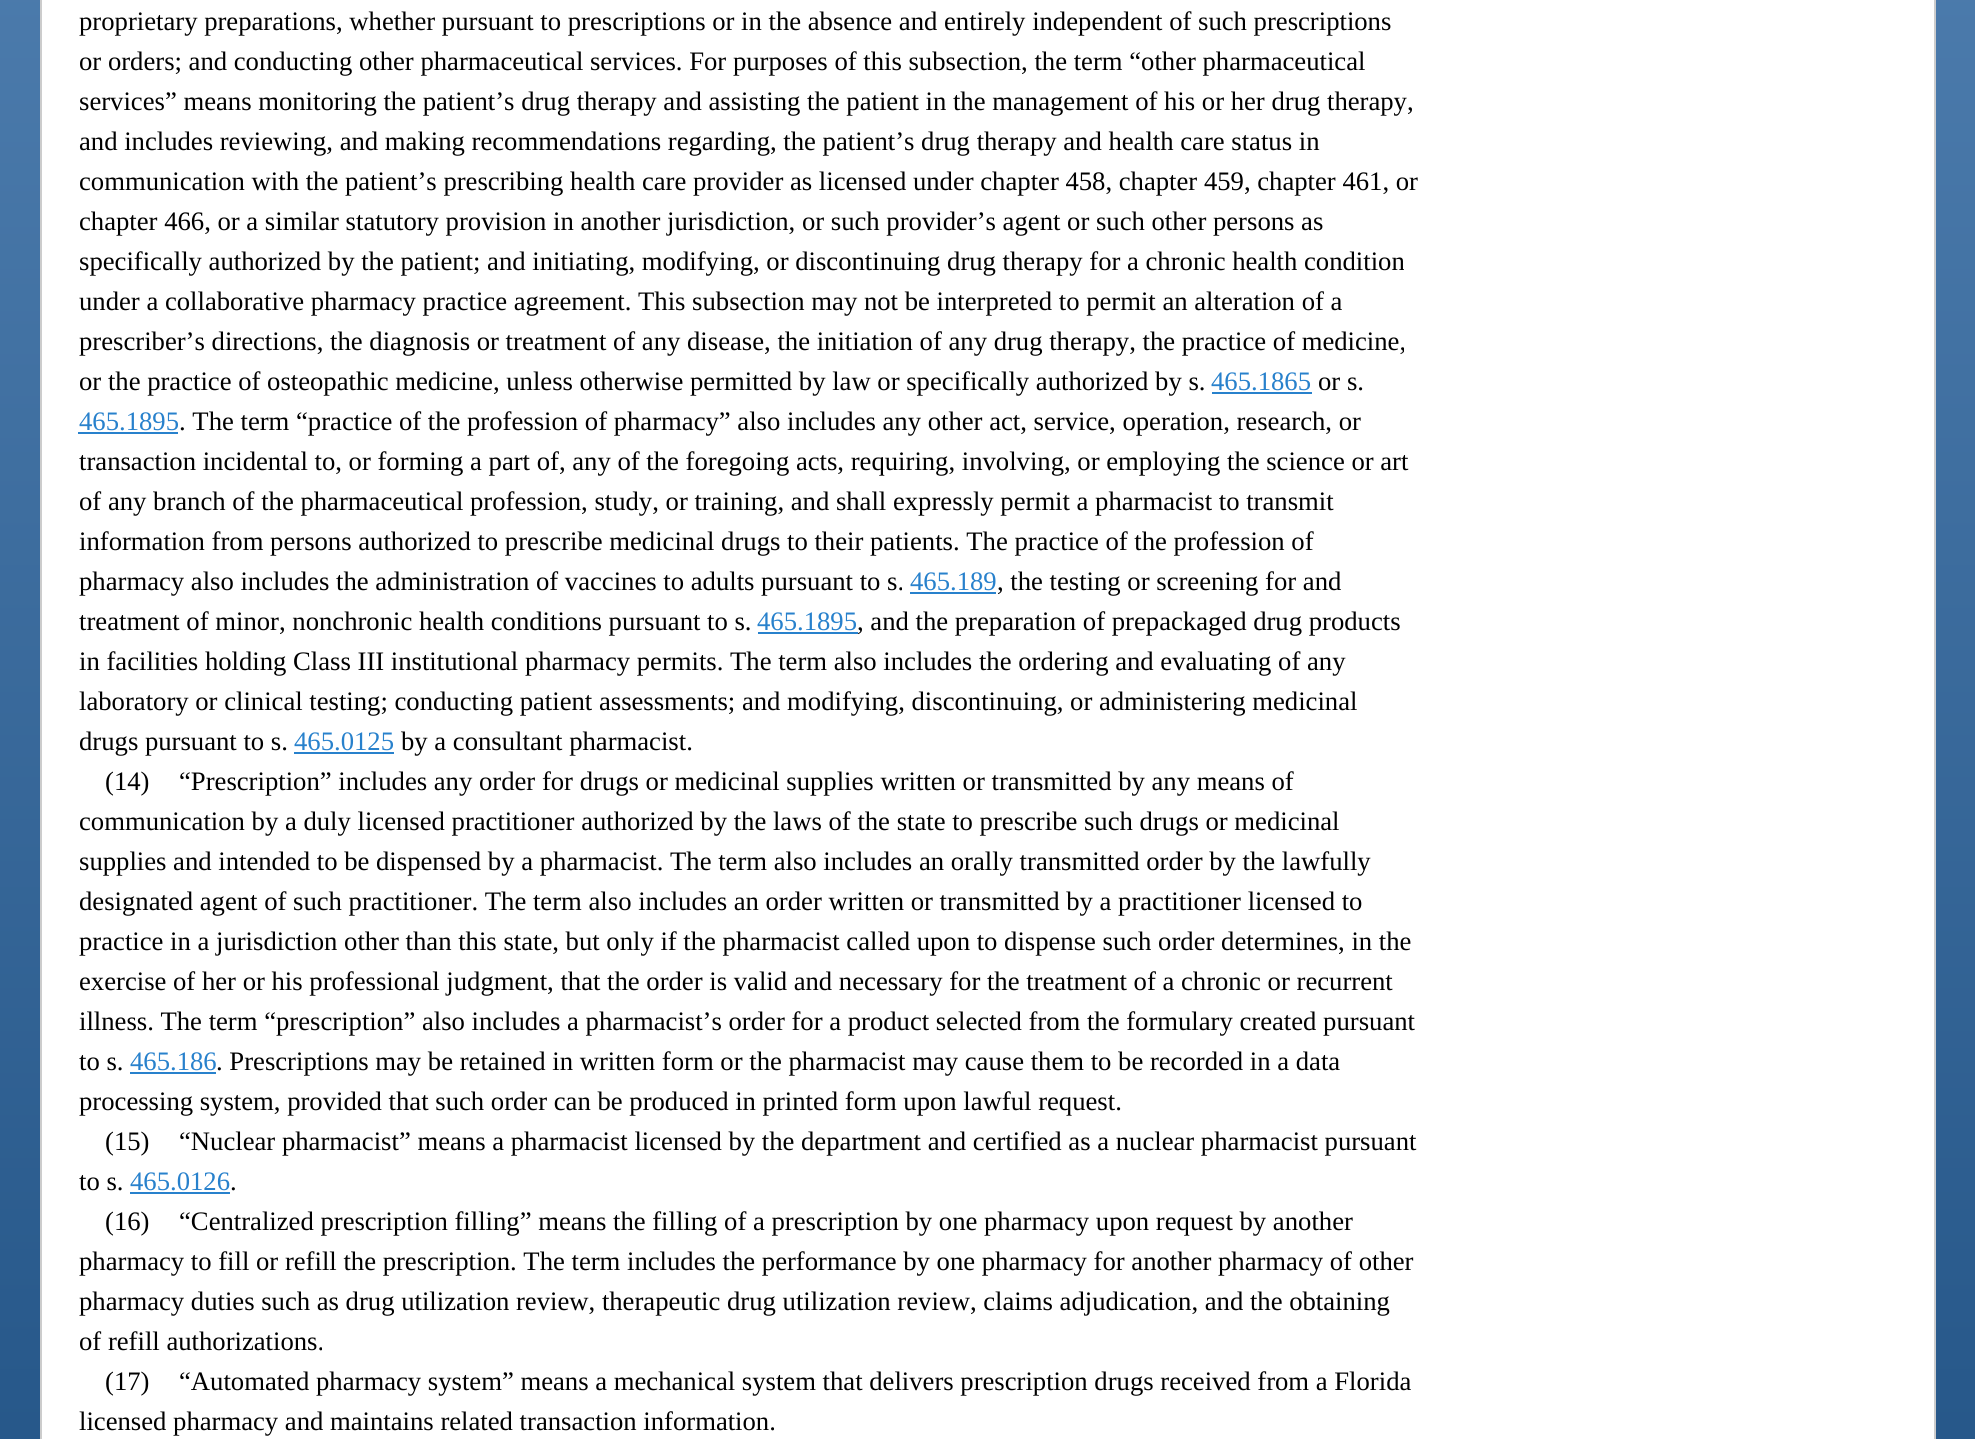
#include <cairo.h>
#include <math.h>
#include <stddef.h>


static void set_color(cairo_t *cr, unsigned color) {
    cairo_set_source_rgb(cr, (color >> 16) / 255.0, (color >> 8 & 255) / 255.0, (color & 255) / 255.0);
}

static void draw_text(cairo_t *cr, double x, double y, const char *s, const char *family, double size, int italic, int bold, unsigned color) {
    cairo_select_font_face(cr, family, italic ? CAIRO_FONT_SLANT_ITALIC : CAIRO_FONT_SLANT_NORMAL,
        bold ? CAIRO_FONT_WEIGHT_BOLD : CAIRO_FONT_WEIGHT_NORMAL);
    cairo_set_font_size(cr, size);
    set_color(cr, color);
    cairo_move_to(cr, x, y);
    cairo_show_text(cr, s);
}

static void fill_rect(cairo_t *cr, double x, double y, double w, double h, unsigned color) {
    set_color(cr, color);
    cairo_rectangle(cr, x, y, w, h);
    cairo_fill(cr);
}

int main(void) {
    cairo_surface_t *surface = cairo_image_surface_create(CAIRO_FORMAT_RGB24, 1975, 1439);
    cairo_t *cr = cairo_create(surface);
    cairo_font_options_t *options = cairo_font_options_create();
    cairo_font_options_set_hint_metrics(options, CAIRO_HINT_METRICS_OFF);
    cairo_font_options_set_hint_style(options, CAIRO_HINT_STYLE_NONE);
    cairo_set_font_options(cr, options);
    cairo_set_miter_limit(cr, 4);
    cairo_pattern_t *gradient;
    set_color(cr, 0xFFFFFF);
    cairo_paint(cr);
    gradient = cairo_pattern_create_linear(988, -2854, 988, 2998);
    cairo_pattern_add_color_stop_rgba(gradient, 0.01, 0.565, 0.737, 0.922, 1);
    cairo_pattern_add_color_stop_rgba(gradient, 1, 0, 0.2, 0.4, 1);
    cairo_set_source(cr, gradient);
    cairo_pattern_destroy(gradient);
    cairo_rectangle(cr, 0, 0, 1975, 1439);
    cairo_fill(cr);
    fill_rect(cr, 42, 0, 1892, 1439, 0xFFFFFF);
    set_color(cr, 0xCCCCCC);
    cairo_new_path(cr);
    cairo_move_to(cr, 1936, -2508);
    cairo_line_to(cr, 1934, -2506);
    cairo_line_to(cr, 1934, 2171);
    cairo_curve_to(cr, 1934, 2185, 1928, 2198, 1919, 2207);
    cairo_line_to(cr, 1920, 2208);
    cairo_curve_to(cr, 1930, 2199, 1936, 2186, 1936, 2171);
    cairo_close_path(cr);
    cairo_fill(cr);
    cairo_new_path(cr);
    cairo_move_to(cr, 40, -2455);
    cairo_line_to(cr, 40, 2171);
    cairo_curve_to(cr, 40, 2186, 46, 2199, 56, 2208);
    cairo_line_to(cr, 57, 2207);
    cairo_curve_to(cr, 48, 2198, 42, 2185, 42, 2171);
    cairo_line_to(cr, 42, -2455);
    cairo_curve_to(cr, 42, -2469, 48, -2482, 57, -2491);
    cairo_line_to(cr, 56, -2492);
    cairo_curve_to(cr, 46, -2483, 40, -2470, 40, -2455);
    cairo_close_path(cr);
    cairo_fill(cr);
    draw_text(cr, 79, 30, "proprietary preparations, whether pursuant to prescriptions or in the absence and entirely independent of such prescriptions", "Liberation Serif", 26.67, 0, 0, 0x000000);
    draw_text(cr, 79, 70, "or orders; and conducting other pharmaceutical services. For purposes of this subsection, the term “other pharmaceutical", "Liberation Serif", 26.67, 0, 0, 0x000000);
    draw_text(cr, 79, 110, "services” means monitoring the patient’s drug therapy and assisting the patient in the management of his or her drug therapy,", "Liberation Serif", 26.67, 0, 0, 0x000000);
    draw_text(cr, 79, 150, "and includes reviewing, and making recommendations regarding, the patient’s drug therapy and health care status in", "Liberation Serif", 26.67, 0, 0, 0x000000);
    draw_text(cr, 79, 190, "communication with the patient’s prescribing health care provider as licensed under chapter 458, chapter 459, chapter 461, or", "Liberation Serif", 26.67, 0, 0, 0x000000);
    draw_text(cr, 79, 230, "chapter 466, or a similar statutory provision in another jurisdiction, or such provider’s agent or such other persons as", "Liberation Serif", 26.67, 0, 0, 0x000000);
    draw_text(cr, 79, 270, "specifically authorized by the patient; and initiating, modifying, or discontinuing drug therapy for a chronic health condition", "Liberation Serif", 26.67, 0, 0, 0x000000);
    draw_text(cr, 79, 310, "under a collaborative pharmacy practice agreement. This subsection may not be interpreted to permit an alteration of a", "Liberation Serif", 26.67, 0, 0, 0x000000);
    draw_text(cr, 79, 350, "prescriber’s directions, the diagnosis or treatment of any disease, the initiation of any drug therapy, the practice of medicine,", "Liberation Serif", 26.67, 0, 0, 0x000000);
    draw_text(cr, 79, 390, "or the practice of osteopathic medicine, unless otherwise permitted by law or specifically authorized by s.", "Liberation Serif", 26.67, 0, 0, 0x000000);
    draw_text(cr, 1211, 390, "465.1865", "Liberation Serif", 26.67, 0, 0, 0x2881CC);
    fill_rect(cr, 1212, 392, 100, 2, 0x2881CC);
    draw_text(cr, 1318, 390, "or s.", "Liberation Serif", 26.67, 0, 0, 0x000000);
    draw_text(cr, 79, 430, "465.1895", "Liberation Serif", 26.67, 0, 0, 0x2881CC);
    draw_text(cr, 179, 430, ". The term “practice of the profession of pharmacy” also includes any other act, service, operation, research, or", "Liberation Serif", 26.67, 0, 0, 0x000000);
    fill_rect(cr, 78, 432, 100, 2, 0x2881CC);
    draw_text(cr, 79, 470, "transaction incidental to, or forming a part of, any of the foregoing acts, requiring, involving, or employing the science or art", "Liberation Serif", 26.67, 0, 0, 0x000000);
    draw_text(cr, 79, 510, "of any branch of the pharmaceutical profession, study, or training, and shall expressly permit a pharmacist to transmit", "Liberation Serif", 26.67, 0, 0, 0x000000);
    draw_text(cr, 79, 550, "information from persons authorized to prescribe medicinal drugs to their patients. The practice of the profession of", "Liberation Serif", 26.67, 0, 0, 0x000000);
    draw_text(cr, 79, 590, "pharmacy also includes the administration of vaccines to adults pursuant to s.", "Liberation Serif", 26.67, 0, 0, 0x000000);
    draw_text(cr, 910, 590, "465.189", "Liberation Serif", 26.67, 0, 0, 0x2881CC);
    draw_text(cr, 997, 590, ", the testing or screening for and", "Liberation Serif", 26.67, 0, 0, 0x000000);
    fill_rect(cr, 910, 592, 86, 2, 0x2881CC);
    draw_text(cr, 79, 630, "treatment of minor, nonchronic health conditions pursuant to s.", "Liberation Serif", 26.67, 0, 0, 0x000000);
    draw_text(cr, 757, 630, "465.1895", "Liberation Serif", 26.67, 0, 0, 0x2881CC);
    draw_text(cr, 857, 630, ", and the preparation of prepackaged drug products", "Liberation Serif", 26.67, 0, 0, 0x000000);
    fill_rect(cr, 758, 632, 100, 2, 0x2881CC);
    draw_text(cr, 79, 670, "in facilities holding Class III institutional pharmacy permits. The term also includes the ordering and evaluating of any", "Liberation Serif", 26.67, 0, 0, 0x000000);
    draw_text(cr, 79, 710, "laboratory or clinical testing; conducting patient assessments; and modifying, discontinuing, or administering medicinal", "Liberation Serif", 26.67, 0, 0, 0x000000);
    draw_text(cr, 79, 750, "drugs pursuant to s.", "Liberation Serif", 26.67, 0, 0, 0x000000);
    draw_text(cr, 294, 750, "465.0125", "Liberation Serif", 26.67, 0, 0, 0x2881CC);
    fill_rect(cr, 294, 752, 100, 2, 0x2881CC);
    draw_text(cr, 401, 750, "by a consultant pharmacist.", "Liberation Serif", 26.67, 0, 0, 0x000000);
    draw_text(cr, 105, 790, "(14)", "Liberation Serif", 26.67, 0, 0, 0x000000);
    draw_text(cr, 179, 790, "“Prescription” includes any order for drugs or medicinal supplies written or transmitted by any means of", "Liberation Serif", 26.67, 0, 0, 0x000000);
    draw_text(cr, 79, 830, "communication by a duly licensed practitioner authorized by the laws of the state to prescribe such drugs or medicinal", "Liberation Serif", 26.67, 0, 0, 0x000000);
    draw_text(cr, 79, 870, "supplies and intended to be dispensed by a pharmacist. The term also includes an orally transmitted order by the lawfully", "Liberation Serif", 26.67, 0, 0, 0x000000);
    draw_text(cr, 79, 910, "designated agent of such practitioner. The term also includes an order written or transmitted by a practitioner licensed to", "Liberation Serif", 26.67, 0, 0, 0x000000);
    draw_text(cr, 79, 950, "practice in a jurisdiction other than this state, but only if the pharmacist called upon to dispense such order determines, in the", "Liberation Serif", 26.67, 0, 0, 0x000000);
    draw_text(cr, 79, 990, "exercise of her or his professional judgment, that the order is valid and necessary for the treatment of a chronic or recurrent", "Liberation Serif", 26.67, 0, 0, 0x000000);
    draw_text(cr, 79, 1030, "illness. The term “prescription” also includes a pharmacist’s order for a product selected from the formulary created pursuant", "Liberation Serif", 26.67, 0, 0, 0x000000);
    draw_text(cr, 79, 1070, "to s.", "Liberation Serif", 26.67, 0, 0, 0x000000);
    draw_text(cr, 130, 1070, "465.186", "Liberation Serif", 26.67, 0, 0, 0x2881CC);
    draw_text(cr, 216, 1070, ". Prescriptions may be retained in written form or the pharmacist may cause them to be recorded in a data", "Liberation Serif", 26.67, 0, 0, 0x000000);
    fill_rect(cr, 130, 1072, 86, 2, 0x2881CC);
    draw_text(cr, 79, 1110, "processing system, provided that such order can be produced in printed form upon lawful request.", "Liberation Serif", 26.67, 0, 0, 0x000000);
    draw_text(cr, 105, 1150, "(15)", "Liberation Serif", 26.67, 0, 0, 0x000000);
    draw_text(cr, 179, 1150, "“Nuclear pharmacist” means a pharmacist licensed by the department and certified as a nuclear pharmacist pursuant", "Liberation Serif", 26.67, 0, 0, 0x000000);
    draw_text(cr, 79, 1190, "to s.", "Liberation Serif", 26.67, 0, 0, 0x000000);
    draw_text(cr, 130, 1190, "465.0126", "Liberation Serif", 26.67, 0, 0, 0x2881CC);
    draw_text(cr, 230, 1190, ".", "Liberation Serif", 26.67, 0, 0, 0x000000);
    fill_rect(cr, 130, 1192, 100, 2, 0x2881CC);
    draw_text(cr, 105, 1230, "(16)", "Liberation Serif", 26.67, 0, 0, 0x000000);
    draw_text(cr, 179, 1230, "“Centralized prescription filling” means the filling of a prescription by one pharmacy upon request by another", "Liberation Serif", 26.67, 0, 0, 0x000000);
    draw_text(cr, 79, 1270, "pharmacy to fill or refill the prescription. The term includes the performance by one pharmacy for another pharmacy of other", "Liberation Serif", 26.67, 0, 0, 0x000000);
    draw_text(cr, 79, 1310, "pharmacy duties such as drug utilization review, therapeutic drug utilization review, claims adjudication, and the obtaining", "Liberation Serif", 26.67, 0, 0, 0x000000);
    draw_text(cr, 79, 1350, "of refill authorizations.", "Liberation Serif", 26.67, 0, 0, 0x000000);
    draw_text(cr, 105, 1390, "(17)", "Liberation Serif", 26.67, 0, 0, 0x000000);
    draw_text(cr, 179, 1390, "“Automated pharmacy system” means a mechanical system that delivers prescription drugs received from a Florida", "Liberation Serif", 26.67, 0, 0, 0x000000);
    draw_text(cr, 79, 1430, "licensed pharmacy and maintains related transaction information.", "Liberation Serif", 26.67, 0, 0, 0x000000);
    cairo_surface_write_to_png(surface, "output.png");
    cairo_font_options_destroy(options);
    cairo_destroy(cr);
    cairo_surface_destroy(surface);
    return 0;
}
